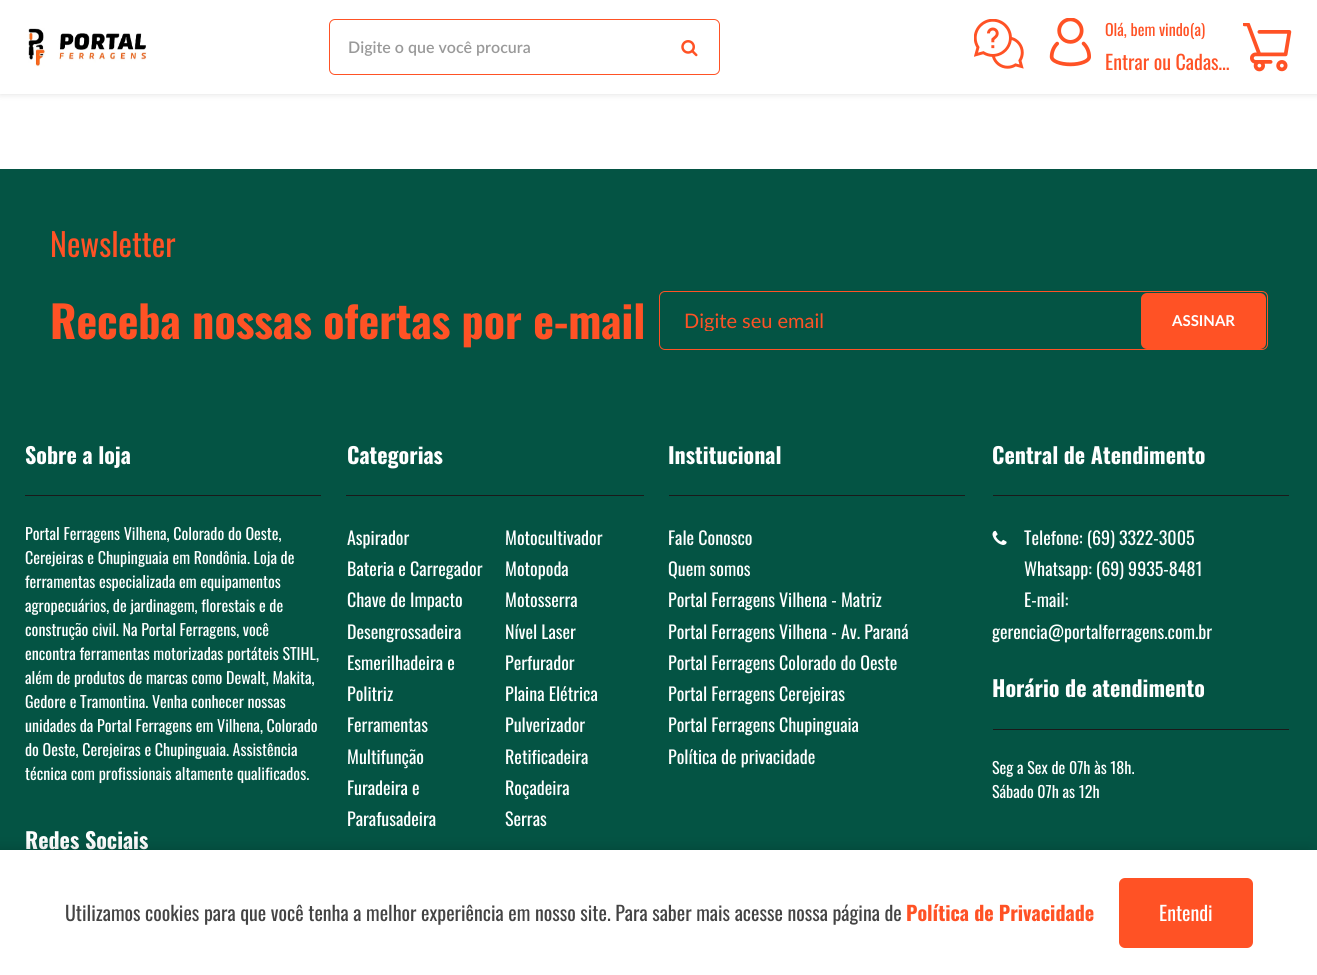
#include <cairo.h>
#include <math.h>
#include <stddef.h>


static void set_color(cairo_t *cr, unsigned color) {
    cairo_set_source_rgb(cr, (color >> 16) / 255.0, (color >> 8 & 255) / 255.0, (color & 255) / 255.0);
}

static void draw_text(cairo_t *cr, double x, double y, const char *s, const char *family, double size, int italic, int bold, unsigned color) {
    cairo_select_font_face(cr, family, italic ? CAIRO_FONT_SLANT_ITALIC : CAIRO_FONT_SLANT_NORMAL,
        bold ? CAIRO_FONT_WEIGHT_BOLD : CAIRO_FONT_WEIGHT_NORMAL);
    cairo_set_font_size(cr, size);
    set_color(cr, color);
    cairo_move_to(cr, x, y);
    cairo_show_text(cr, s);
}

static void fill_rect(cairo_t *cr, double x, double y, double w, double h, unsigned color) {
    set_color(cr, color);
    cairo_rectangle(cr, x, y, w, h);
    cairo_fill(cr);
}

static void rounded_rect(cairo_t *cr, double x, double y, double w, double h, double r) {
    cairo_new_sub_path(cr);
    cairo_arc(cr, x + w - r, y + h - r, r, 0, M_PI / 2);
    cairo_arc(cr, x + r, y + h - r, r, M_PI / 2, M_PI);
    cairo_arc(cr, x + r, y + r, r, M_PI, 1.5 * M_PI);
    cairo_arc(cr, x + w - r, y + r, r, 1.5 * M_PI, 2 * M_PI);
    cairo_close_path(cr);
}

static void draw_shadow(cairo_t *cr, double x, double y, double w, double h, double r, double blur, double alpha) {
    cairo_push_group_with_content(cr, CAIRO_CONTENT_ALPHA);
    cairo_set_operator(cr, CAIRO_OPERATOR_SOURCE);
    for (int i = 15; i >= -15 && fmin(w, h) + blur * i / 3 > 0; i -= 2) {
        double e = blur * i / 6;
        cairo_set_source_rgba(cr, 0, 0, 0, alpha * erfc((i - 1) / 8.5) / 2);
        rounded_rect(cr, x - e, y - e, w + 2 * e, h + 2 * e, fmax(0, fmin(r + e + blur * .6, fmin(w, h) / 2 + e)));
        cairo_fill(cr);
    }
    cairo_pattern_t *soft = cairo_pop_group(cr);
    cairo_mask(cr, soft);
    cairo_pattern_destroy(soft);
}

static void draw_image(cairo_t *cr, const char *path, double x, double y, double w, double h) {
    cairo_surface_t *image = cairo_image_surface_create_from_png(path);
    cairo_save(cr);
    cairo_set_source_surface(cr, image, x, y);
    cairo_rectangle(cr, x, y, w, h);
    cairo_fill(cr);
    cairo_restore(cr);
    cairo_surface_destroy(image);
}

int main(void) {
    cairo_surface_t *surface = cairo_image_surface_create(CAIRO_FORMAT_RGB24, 1317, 975);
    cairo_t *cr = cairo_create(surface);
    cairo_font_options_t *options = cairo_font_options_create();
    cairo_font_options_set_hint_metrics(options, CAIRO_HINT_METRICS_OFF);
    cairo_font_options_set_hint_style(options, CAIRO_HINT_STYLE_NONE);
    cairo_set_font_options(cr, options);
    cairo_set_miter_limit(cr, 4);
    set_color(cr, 0xFFFFFF);
    cairo_paint(cr);
    set_color(cr, 0x000000);
    draw_shadow(cr, 0, 1, 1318, 94, 0, 3, 0.1);
    fill_rect(cr, 0, 0, 1317, 94, 0xFFFFFF);
    draw_image(cr, "assets/img1.png", 28, 28, 119, 39);
    rounded_rect(cr, 329.5, 19.5, 390, 55, 5.5);
    set_color(cr, 0xFF5225);
    cairo_set_line_width(cr, 1);
    cairo_stroke(cr);
    draw_text(cr, 348, 53, "Digite o que você procura", "Lato SemiBold", 16, 0, 0, 0x999999);
    draw_image(cr, "assets/img2.png", 681, 40, 17, 17);
    draw_image(cr, "assets/img3.png", 974, 19, 50, 50);
    draw_image(cr, "assets/img4.png", 1049, 18, 42, 49);
    draw_text(cr, 1105, 36, "Olá, bem vindo(a)", "Oswald", 16, 0, 0, 0xFF5225);
    draw_text(cr, 1105, 70, "Entrar ou Cadas…", "Oswald", 20, 0, 0, 0xFF5225);
    draw_image(cr, "assets/img5.png", 1243, 23, 49, 49);
    fill_rect(cr, 0, 169, 1317, 681, 0x045444);
    draw_text(cr, 50, 257, "Newsletter", "Oswald", 32, 0, 0, 0xFF5225);
    draw_text(cr, 50, 339, "Receba nossas ofertas por e-mail", "Oswald", 44, 0, 1, 0xFF5225);
    rounded_rect(cr, 659.5, 291.5, 608, 58, 5.5);
    cairo_stroke(cr);
    cairo_save(cr);
    cairo_rectangle(cr, 684, 308, 427, 23);
    cairo_clip(cr);
    draw_text(cr, 684, 328, "Digite seu email", "Lato", 20, 0, 0, 0xFF5225);
    cairo_restore(cr);
    cairo_save(cr);
    rounded_rect(cr, 660, 293, 606, 56, 5);
    cairo_clip(cr);
    rounded_rect(cr, 1141, 293, 125, 56, 6);
    cairo_fill(cr);
    cairo_restore(cr);
    draw_text(cr, 1172, 326, "ASSINAR", "Lato", 15, 0, 1, 0xFFFFFF);
    fill_rect(cr, 25, 495, 296, 1, 0x1A1A1A);
    draw_text(cr, 25, 464, "Sobre a loja", "Oswald", 22, 0, 1, 0xFFFFFF);
    draw_text(cr, 25, 540, "Portal Ferragens Vilhena, Colorado do Oeste,", "Oswald", 16, 0, 0, 0xFFFFFF);
    draw_text(cr, 25, 564, "Cerejeiras e Chupinguaia em Rondônia. Loja de", "Oswald", 16, 0, 0, 0xFFFFFF);
    draw_text(cr, 25, 588, "ferramentas especializada em equipamentos", "Oswald", 16, 0, 0, 0xFFFFFF);
    draw_text(cr, 25, 612, "agropecuários, de jardinagem, florestais e de", "Oswald", 16, 0, 0, 0xFFFFFF);
    draw_text(cr, 25, 636, "construção civil. Na Portal Ferragens, você", "Oswald", 16, 0, 0, 0xFFFFFF);
    draw_text(cr, 25, 660, "encontra ferramentas motorizadas portáteis STIHL,", "Oswald", 16, 0, 0, 0xFFFFFF);
    draw_text(cr, 25, 684, "além de produtos de marcas como Dewalt, Makita,", "Oswald", 16, 0, 0, 0xFFFFFF);
    draw_text(cr, 25, 708, "Gedore e Tramontina. Venha conhecer nossas", "Oswald", 16, 0, 0, 0xFFFFFF);
    draw_text(cr, 25, 732, "unidades da Portal Ferragens em Vilhena, Colorado", "Oswald", 16, 0, 0, 0xFFFFFF);
    draw_text(cr, 25, 756, "do Oeste, Cerejeiras e Chupinguaia. Assistência", "Oswald", 16, 0, 0, 0xFFFFFF);
    draw_text(cr, 25, 780, "técnica com profissionais altamente qualificados.", "Oswald", 16, 0, 0, 0xFFFFFF);
    draw_text(cr, 25, 849, "Redes Sociais", "Oswald", 22, 0, 1, 0xFFFFFF);
    fill_rect(cr, 346, 495, 298, 1, 0x1A1A1A);
    draw_text(cr, 347, 464, "Categorias", "Oswald", 22, 0, 1, 0xFFFFFF);
    draw_text(cr, 347, 545, "Aspirador", "Oswald", 18, 0, 0, 0xFFFFFF);
    draw_text(cr, 505, 545, "Motocultivador", "Oswald", 18, 0, 0, 0xFFFFFF);
    draw_text(cr, 347, 576, "Bateria e Carregador", "Oswald", 18, 0, 0, 0xFFFFFF);
    draw_text(cr, 505, 576, "Motopoda", "Oswald", 18, 0, 0, 0xFFFFFF);
    draw_text(cr, 347, 607, "Chave de Impacto", "Oswald", 18, 0, 0, 0xFFFFFF);
    draw_text(cr, 505, 607, "Motosserra", "Oswald", 18, 0, 0, 0xFFFFFF);
    draw_text(cr, 347, 639, "Desengrossadeira", "Oswald", 18, 0, 0, 0xFFFFFF);
    draw_text(cr, 505, 639, "Nível Laser", "Oswald", 18, 0, 0, 0xFFFFFF);
    draw_text(cr, 347, 670, "Esmerilhadeira e", "Oswald", 18, 0, 0, 0xFFFFFF);
    draw_text(cr, 347, 701, "Politriz", "Oswald", 18, 0, 0, 0xFFFFFF);
    draw_text(cr, 505, 670, "Perfurador", "Oswald", 18, 0, 0, 0xFFFFFF);
    draw_text(cr, 505, 701, "Plaina Elétrica", "Oswald", 18, 0, 0, 0xFFFFFF);
    draw_text(cr, 347, 732, "Ferramentas", "Oswald", 18, 0, 0, 0xFFFFFF);
    draw_text(cr, 347, 764, "Multifunção", "Oswald", 18, 0, 0, 0xFFFFFF);
    draw_text(cr, 505, 732, "Pulverizador", "Oswald", 18, 0, 0, 0xFFFFFF);
    draw_text(cr, 505, 764, "Retificadeira", "Oswald", 18, 0, 0, 0xFFFFFF);
    draw_text(cr, 347, 795, "Furadeira e", "Oswald", 18, 0, 0, 0xFFFFFF);
    draw_text(cr, 347, 826, "Parafusadeira", "Oswald", 18, 0, 0, 0xFFFFFF);
    draw_text(cr, 505, 795, "Roçadeira", "Oswald", 18, 0, 0, 0xFFFFFF);
    draw_text(cr, 505, 826, "Serras", "Oswald", 18, 0, 0, 0xFFFFFF);
    fill_rect(cr, 669, 495, 296, 1, 0x1A1A1A);
    draw_text(cr, 668, 464, "Institucional", "Oswald", 22, 0, 1, 0xFFFFFF);
    draw_text(cr, 668, 545, "Fale Conosco", "Oswald", 18, 0, 0, 0xFFFFFF);
    draw_text(cr, 668, 576, "Quem somos", "Oswald", 18, 0, 0, 0xFFFFFF);
    draw_text(cr, 668, 607, "Portal Ferragens Vilhena - Matriz", "Oswald", 18, 0, 0, 0xFFFFFF);
    draw_text(cr, 668, 639, "Portal Ferragens Vilhena - Av. Paraná", "Oswald", 18, 0, 0, 0xFFFFFF);
    draw_text(cr, 668, 670, "Portal Ferragens Colorado do Oeste", "Oswald", 18, 0, 0, 0xFFFFFF);
    draw_text(cr, 668, 701, "Portal Ferragens Cerejeiras", "Oswald", 18, 0, 0, 0xFFFFFF);
    draw_text(cr, 668, 732, "Portal Ferragens Chupinguaia", "Oswald", 18, 0, 0, 0xFFFFFF);
    draw_text(cr, 668, 764, "Política de privacidade", "Oswald", 18, 0, 0, 0xFFFFFF);
    fill_rect(cr, 993, 495, 296, 1, 0x1A1A1A);
    draw_text(cr, 992, 464, "Central de Atendimento", "Oswald", 22, 0, 1, 0xFFFFFF);
    draw_image(cr, "assets/img6.png", 992, 530, 15, 15);
    draw_text(cr, 1024, 545, "Telefone: (69) 3322-3005", "Oswald", 18, 0, 0, 0xFFFFFF);
    draw_text(cr, 1024, 576, "Whatsapp: (69) 9935-8481", "Oswald", 18, 0, 0, 0xFFFFFF);
    draw_text(cr, 1024, 607, "E-mail:", "Oswald", 18, 0, 0, 0xFFFFFF);
    draw_text(cr, 992, 639, "gerencia@portalferragens.com.br", "Oswald", 18, 0, 0, 0xFFFFFF);
    fill_rect(cr, 993, 729, 296, 1, 0x1A1A1A);
    draw_text(cr, 992, 697, "Horário de atendimento", "Oswald", 22, 0, 1, 0xFFFFFF);
    draw_text(cr, 992, 774, "Seg a Sex de 07h às 18h.", "Oswald", 16, 0, 0, 0xFFFFFF);
    draw_text(cr, 992, 798, "Sábado 07h as 12h", "Oswald", 16, 0, 0, 0xFFFFFF);
    set_color(cr, 0x000000);
    draw_shadow(cr, -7, 850, 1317, 125, 0, 7.5, 0.2);
    fill_rect(cr, 0, 850, 1317, 125, 0xFFFFFF);
    draw_text(cr, 65, 921, "Utilizamos cookies para que você tenha a melhor experiência em nosso site. Para saber mais acesse nossa página de", "Oswald", 20, 0, 0, 0x444444);
    draw_text(cr, 906, 921, "Política de Privacidade", "Oswald", 20, 0, 1, 0xFF5225);
    rounded_rect(cr, 1119, 878, 134, 70, 6);
    cairo_fill(cr);
    draw_text(cr, 1159, 921, "Entendi", "Oswald", 20, 0, 0, 0xFFFFFF);
    cairo_surface_write_to_png(surface, "output.png");
    cairo_font_options_destroy(options);
    cairo_destroy(cr);
    cairo_surface_destroy(surface);
    return 0;
}
